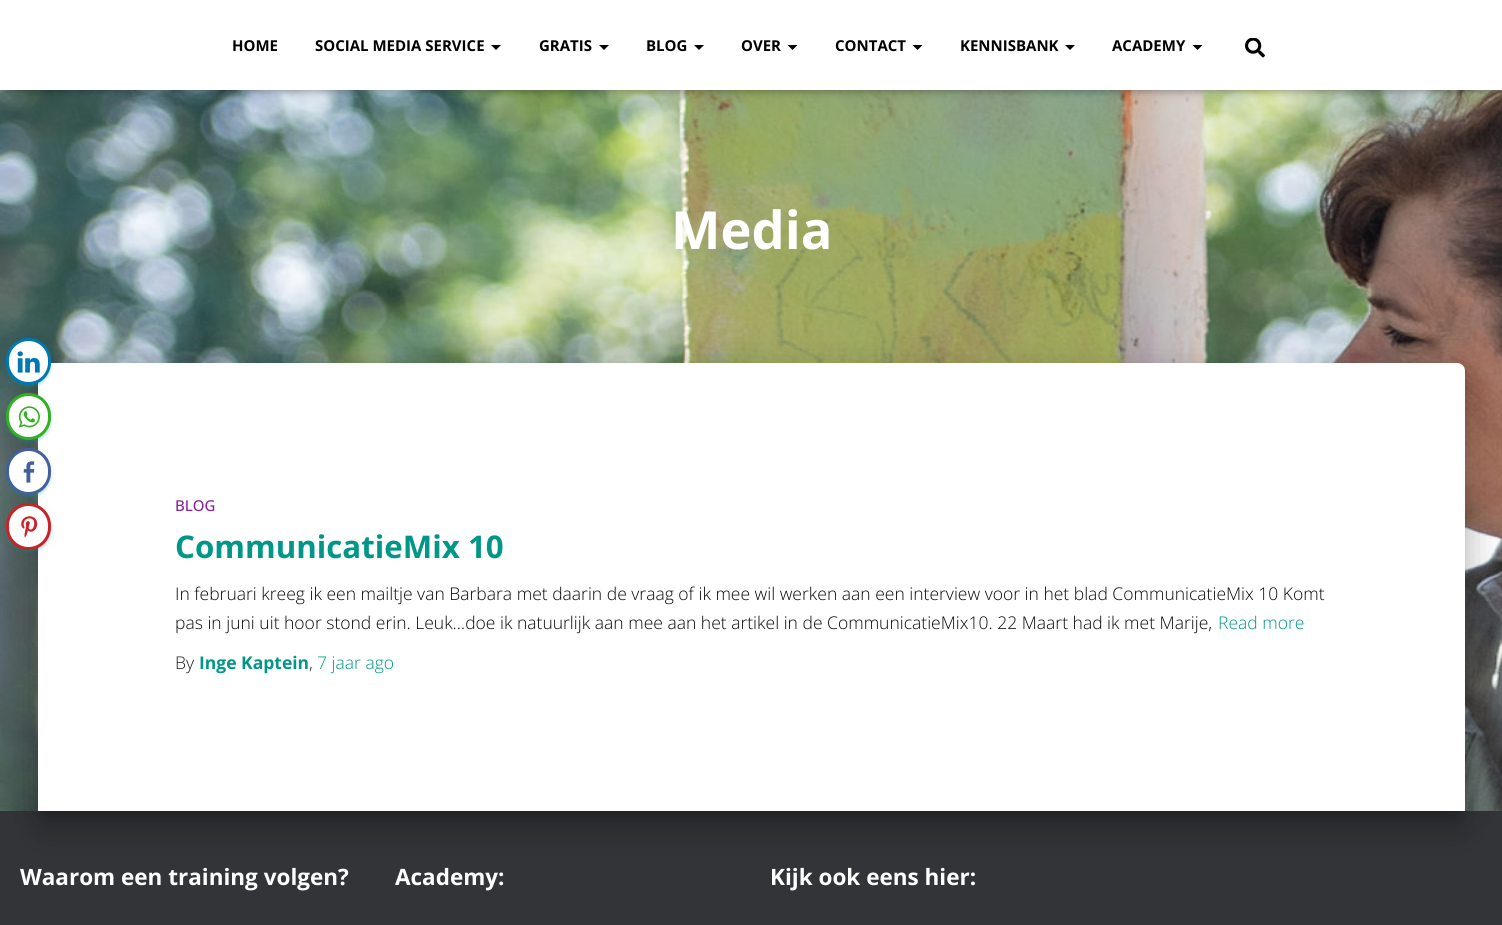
#include <cairo.h>
#include <math.h>
#include <stddef.h>


static void set_color(cairo_t *cr, unsigned color) {
    cairo_set_source_rgb(cr, (color >> 16) / 255.0, (color >> 8 & 255) / 255.0, (color & 255) / 255.0);
}

static void draw_text(cairo_t *cr, double x, double y, const char *s, const char *family, double size, int italic, int bold, unsigned color) {
    cairo_select_font_face(cr, family, italic ? CAIRO_FONT_SLANT_ITALIC : CAIRO_FONT_SLANT_NORMAL,
        bold ? CAIRO_FONT_WEIGHT_BOLD : CAIRO_FONT_WEIGHT_NORMAL);
    cairo_set_font_size(cr, size);
    set_color(cr, color);
    cairo_move_to(cr, x, y);
    cairo_show_text(cr, s);
}

static void fill_rect(cairo_t *cr, double x, double y, double w, double h, unsigned color) {
    set_color(cr, color);
    cairo_rectangle(cr, x, y, w, h);
    cairo_fill(cr);
}

static void rounded_rect(cairo_t *cr, double x, double y, double w, double h, double r) {
    cairo_new_sub_path(cr);
    cairo_arc(cr, x + w - r, y + h - r, r, 0, M_PI / 2);
    cairo_arc(cr, x + r, y + h - r, r, M_PI / 2, M_PI);
    cairo_arc(cr, x + r, y + r, r, M_PI, 1.5 * M_PI);
    cairo_arc(cr, x + w - r, y + r, r, 1.5 * M_PI, 2 * M_PI);
    cairo_close_path(cr);
}

static void draw_shadow(cairo_t *cr, double x, double y, double w, double h, double r, double blur, double alpha) {
    cairo_push_group_with_content(cr, CAIRO_CONTENT_ALPHA);
    cairo_set_operator(cr, CAIRO_OPERATOR_SOURCE);
    for (int i = 15; i >= -15 && fmin(w, h) + blur * i / 3 > 0; i -= 2) {
        double e = blur * i / 6;
        cairo_set_source_rgba(cr, 0, 0, 0, alpha * erfc((i - 1) / 8.5) / 2);
        rounded_rect(cr, x - e, y - e, w + 2 * e, h + 2 * e, fmax(0, fmin(r + e + blur * .6, fmin(w, h) / 2 + e)));
        cairo_fill(cr);
    }
    cairo_pattern_t *soft = cairo_pop_group(cr);
    cairo_mask(cr, soft);
    cairo_pattern_destroy(soft);
}

static void draw_image(cairo_t *cr, const char *path, double x, double y, double w, double h) {
    cairo_surface_t *image = cairo_image_surface_create_from_png(path);
    cairo_save(cr);
    cairo_set_source_surface(cr, image, x, y);
    cairo_rectangle(cr, x, y, w, h);
    cairo_fill(cr);
    cairo_restore(cr);
    cairo_surface_destroy(image);
}

int main(void) {
    cairo_surface_t *surface = cairo_image_surface_create(CAIRO_FORMAT_RGB24, 1502, 925);
    cairo_t *cr = cairo_create(surface);
    cairo_font_options_t *options = cairo_font_options_create();
    cairo_font_options_set_hint_metrics(options, CAIRO_HINT_METRICS_OFF);
    cairo_font_options_set_hint_style(options, CAIRO_HINT_STYLE_NONE);
    cairo_set_font_options(cr, options);
    cairo_set_miter_limit(cr, 4);
    set_color(cr, 0xFFFFFF);
    cairo_paint(cr);
    draw_image(cr, "assets/img1.png", 0, 90, 1502, 721);
    set_color(cr, 0x000000);
    draw_shadow(cr, 3, 8, 1497, 85, 0, 3, 0.1);
    draw_shadow(cr, 0, 1, 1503, 90, 0, 6, 0.12);
    draw_shadow(cr, 8, 9, 1487, 75, 0, 6, 0.42);
    fill_rect(cr, 0, 0, 1502, 90, 0xFFFFFF);
    draw_text(cr, 232, 51, "HOME", "Open Sans", 15, 0, 1, 0x000000);
    draw_text(cr, 315, 51, "SOCIAL MEDIA SERVICE", "Open Sans", 15, 0, 1, 0x000000);
    cairo_new_path(cr);
    cairo_move_to(cr, 491, 45);
    cairo_line_to(cr, 501, 45);
    cairo_line_to(cr, 496, 50);
    cairo_close_path(cr);
    cairo_fill(cr);
    draw_text(cr, 539, 51, "GRATIS", "Open Sans", 15, 0, 1, 0x000000);
    cairo_new_path(cr);
    cairo_move_to(cr, 599, 45);
    cairo_line_to(cr, 609, 45);
    cairo_line_to(cr, 604, 50);
    cairo_close_path(cr);
    cairo_fill(cr);
    draw_text(cr, 646, 51, "BLOG", "Open Sans", 15, 0, 1, 0x000000);
    cairo_new_path(cr);
    cairo_move_to(cr, 694, 45);
    cairo_line_to(cr, 704, 45);
    cairo_line_to(cr, 699, 50);
    cairo_close_path(cr);
    cairo_fill(cr);
    draw_text(cr, 741, 51, "OVER", "Open Sans", 15, 0, 1, 0x000000);
    cairo_new_path(cr);
    cairo_move_to(cr, 787.5, 45);
    cairo_line_to(cr, 797.5, 45);
    cairo_line_to(cr, 792.5, 50);
    cairo_close_path(cr);
    cairo_fill(cr);
    draw_text(cr, 835, 51, "CONTACT", "Open Sans", 15, 0, 1, 0x000000);
    cairo_new_path(cr);
    cairo_move_to(cr, 912.5, 45);
    cairo_line_to(cr, 922.5, 45);
    cairo_line_to(cr, 917.5, 50);
    cairo_close_path(cr);
    cairo_fill(cr);
    draw_text(cr, 960, 51, "KENNISBANK", "Open Sans", 15, 0, 1, 0x000000);
    cairo_new_path(cr);
    cairo_move_to(cr, 1065, 45);
    cairo_line_to(cr, 1075, 45);
    cairo_line_to(cr, 1070, 50);
    cairo_close_path(cr);
    cairo_fill(cr);
    draw_text(cr, 1112, 51, "ACADEMY", "Open Sans", 15, 0, 1, 0x000000);
    cairo_new_path(cr);
    cairo_move_to(cr, 1192.5, 45);
    cairo_line_to(cr, 1202.5, 45);
    cairo_line_to(cr, 1197.5, 50);
    cairo_close_path(cr);
    cairo_fill(cr);
    draw_image(cr, "assets/img2.png", 1245, 38, 20, 20);
    draw_text(cr, 671, 249, "Media", "Open Sans", 52.5, 0, 1, 0xFFFFFF);
    fill_rect(cr, 0, 811, 1502, 114, 0x323437);
    set_color(cr, 0x000000);
    draw_shadow(cr, 44, 379, 1415, 436, 1, 6, 0.2);
    draw_shadow(cr, 31, 364, 1440, 461, 14, 19, 0.12);
    draw_shadow(cr, 35, 380, 1433, 454, 10, 15, 0.14);
    set_color(cr, 0xFFFFFF);
    cairo_new_path(cr);
    cairo_move_to(cr, 46, 363);
    cairo_line_to(cr, 1457, 363);
    cairo_curve_to(cr, 1461.5, 363, 1465, 366.5, 1465, 371);
    cairo_line_to(cr, 1465, 811);
    cairo_line_to(cr, 38, 811);
    cairo_line_to(cr, 38, 371);
    cairo_curve_to(cr, 38, 366.5, 41.5, 363, 46, 363);
    cairo_close_path(cr);
    cairo_fill(cr);
    draw_text(cr, 175, 511, "BLOG", "Open Sans Medium", 15, 0, 0, 0x89229B);
    draw_text(cr, 175, 558, "CommunicatieMix 10", "Open Sans", 31.25, 0, 1, 0x009688);
    draw_text(cr, 175, 600, "In februari kreeg ik een mailtje van Barbara met daarin de vraag of ik mee wil werken aan een interview voor in het blad CommunicatieMix 10 Komt", "Open Sans Light", 17.5, 0, 0, 0x0A0A0A);
    draw_text(cr, 175, 629, "pas in juni uit hoor stond erin. Leuk…doe ik natuurlijk aan mee aan het artikel in de CommunicatieMix10. 22 Maart had ik met Marije,", "Open Sans Light", 17.5, 0, 0, 0x0A0A0A);
    draw_text(cr, 1218, 629, "Read more", "Open Sans Light", 17.5, 0, 0, 0x009688);
    draw_text(cr, 175, 669, "By", "Open Sans Light", 17.5, 0, 0, 0x212121);
    draw_text(cr, 199, 669, "Inge Kaptein", "Open Sans", 17.5, 0, 1, 0x009688);
    draw_text(cr, 309, 669, ",", "Open Sans Light", 17.5, 0, 0, 0x212121);
    draw_text(cr, 317, 669, "7 jaar ago", "Open Sans Light", 17.5, 0, 0, 0x009688);
    draw_text(cr, 20, 885, "Waarom een training volgen?", "Open Sans", 22.5, 0, 1, 0xFFFFFF);
    draw_text(cr, 395, 885, "Academy:", "Open Sans", 22.5, 0, 1, 0xFFFFFF);
    draw_text(cr, 770, 885, "Kijk ook eens hier:", "Open Sans", 22.5, 0, 1, 0xFFFFFF);
    set_color(cr, 0x009688);
    draw_shadow(cr, 6, 339, 45, 47, 22.5, 3, 0.12);
    draw_shadow(cr, 9, 344, 40, 42, 20, 0.5, 0.2);
    draw_shadow(cr, 6, 340, 45, 48, 22.5, 1, 0.14);
    set_color(cr, 0xFFFFFF);
    rounded_rect(cr, 7.5, 339.5, 42, 44, 21);
    cairo_fill_preserve(cr);
    set_color(cr, 0x0077B5);
    cairo_set_line_width(cr, 3);
    cairo_stroke(cr);
    draw_image(cr, "assets/img3.png", 17, 351, 23, 22);
    set_color(cr, 0x009688);
    draw_shadow(cr, 6, 394, 45, 47, 22.5, 3, 0.12);
    draw_shadow(cr, 9, 399, 40, 42, 20, 0.5, 0.2);
    draw_shadow(cr, 6, 395, 45, 48, 22.5, 1, 0.14);
    set_color(cr, 0xFFFFFF);
    rounded_rect(cr, 7.5, 394.5, 42, 44, 21);
    cairo_fill_preserve(cr);
    set_color(cr, 0x34AF23);
    cairo_stroke(cr);
    draw_image(cr, "assets/img4.png", 18, 406, 22, 22);
    set_color(cr, 0x009688);
    draw_shadow(cr, 6, 449, 45, 47, 22.5, 3, 0.12);
    draw_shadow(cr, 9, 454, 40, 42, 20, 0.5, 0.2);
    draw_shadow(cr, 6, 450, 45, 48, 22.5, 1, 0.14);
    set_color(cr, 0xFFFFFF);
    rounded_rect(cr, 7.5, 449.5, 42, 44, 21);
    cairo_fill_preserve(cr);
    set_color(cr, 0x43609C);
    cairo_stroke(cr);
    draw_image(cr, "assets/img5.png", 23, 461, 12, 22);
    set_color(cr, 0x009688);
    draw_shadow(cr, 6, 504, 45, 47, 22.5, 3, 0.12);
    draw_shadow(cr, 9, 509, 40, 42, 20, 0.5, 0.2);
    draw_shadow(cr, 6, 505, 45, 48, 22.5, 1, 0.14);
    set_color(cr, 0xFFFFFF);
    rounded_rect(cr, 7.5, 504.5, 42, 44, 21);
    cairo_fill_preserve(cr);
    set_color(cr, 0xC92228);
    cairo_stroke(cr);
    draw_image(cr, "assets/img6.png", 21, 516, 17, 22);
    cairo_surface_write_to_png(surface, "output.png");
    cairo_font_options_destroy(options);
    cairo_destroy(cr);
    cairo_surface_destroy(surface);
    return 0;
}
